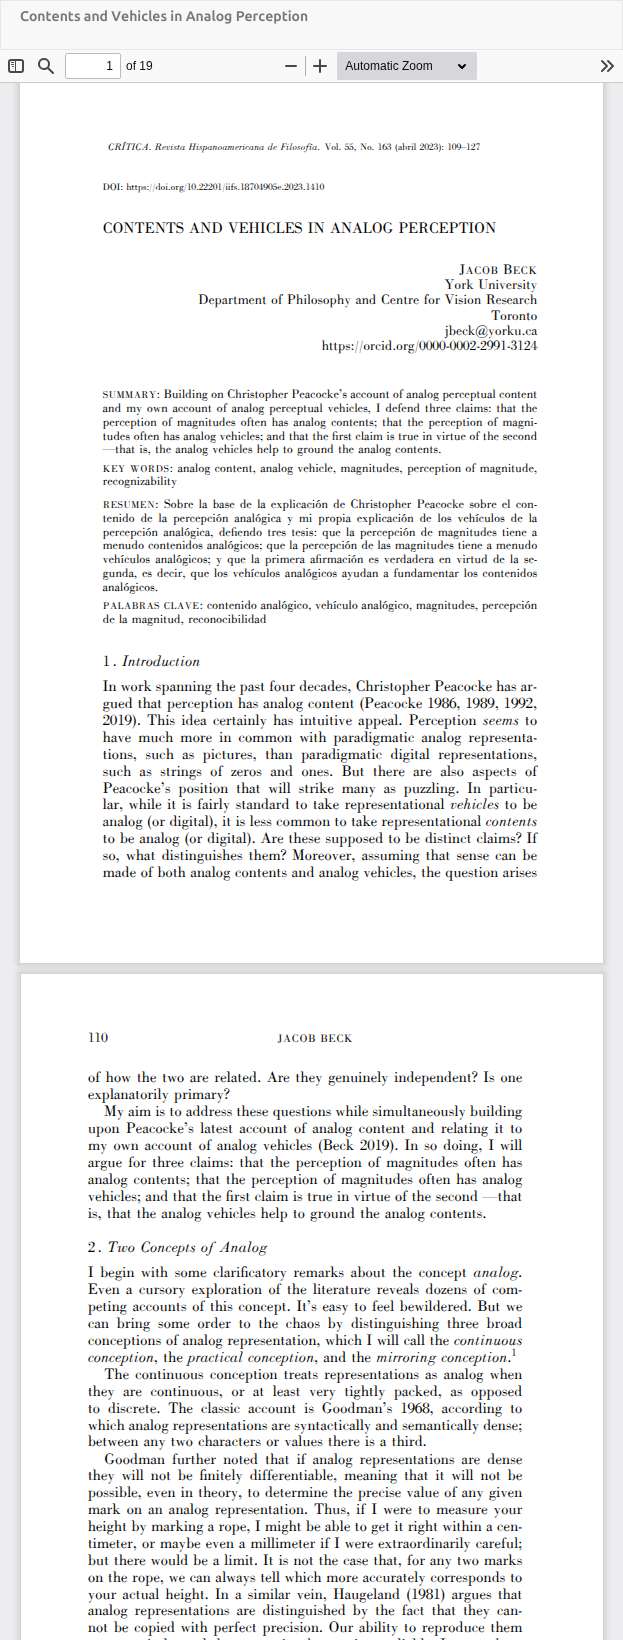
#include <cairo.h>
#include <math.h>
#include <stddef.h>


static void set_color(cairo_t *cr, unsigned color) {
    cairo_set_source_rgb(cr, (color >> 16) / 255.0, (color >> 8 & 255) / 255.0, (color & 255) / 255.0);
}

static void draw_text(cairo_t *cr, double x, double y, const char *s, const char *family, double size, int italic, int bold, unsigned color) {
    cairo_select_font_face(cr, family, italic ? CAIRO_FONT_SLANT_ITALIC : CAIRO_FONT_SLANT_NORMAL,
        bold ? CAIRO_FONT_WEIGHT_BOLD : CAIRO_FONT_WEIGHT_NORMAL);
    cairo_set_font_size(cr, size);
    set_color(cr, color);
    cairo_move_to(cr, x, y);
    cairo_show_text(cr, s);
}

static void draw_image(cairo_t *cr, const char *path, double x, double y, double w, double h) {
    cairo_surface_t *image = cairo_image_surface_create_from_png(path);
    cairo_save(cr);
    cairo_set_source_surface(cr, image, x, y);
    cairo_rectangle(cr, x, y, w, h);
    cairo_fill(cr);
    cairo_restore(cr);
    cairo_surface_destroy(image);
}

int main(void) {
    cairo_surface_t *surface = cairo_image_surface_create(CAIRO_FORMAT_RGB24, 623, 1640);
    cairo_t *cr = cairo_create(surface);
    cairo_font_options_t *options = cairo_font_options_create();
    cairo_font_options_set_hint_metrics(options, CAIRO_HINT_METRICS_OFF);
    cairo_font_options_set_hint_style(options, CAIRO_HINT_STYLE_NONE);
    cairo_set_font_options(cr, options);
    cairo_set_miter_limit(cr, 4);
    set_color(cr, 0xFFFFFF);
    cairo_paint(cr);
    set_color(cr, 0xF8F8F8);
    cairo_rectangle(cr, 0.5, 0.5, 622, 49);
    cairo_fill_preserve(cr);
    set_color(cr, 0xE7E7E7);
    cairo_set_line_width(cr, 1);
    cairo_stroke(cr);
    draw_text(cr, 20, 21, "Contents and Vehicles in Analog Perception", "Ubuntu", 14, 0, 1, 0x777777);
    draw_image(cr, "assets/img1.png", 0, 50, 623, 1590);
    cairo_surface_write_to_png(surface, "output.png");
    cairo_font_options_destroy(options);
    cairo_destroy(cr);
    cairo_surface_destroy(surface);
    return 0;
}
